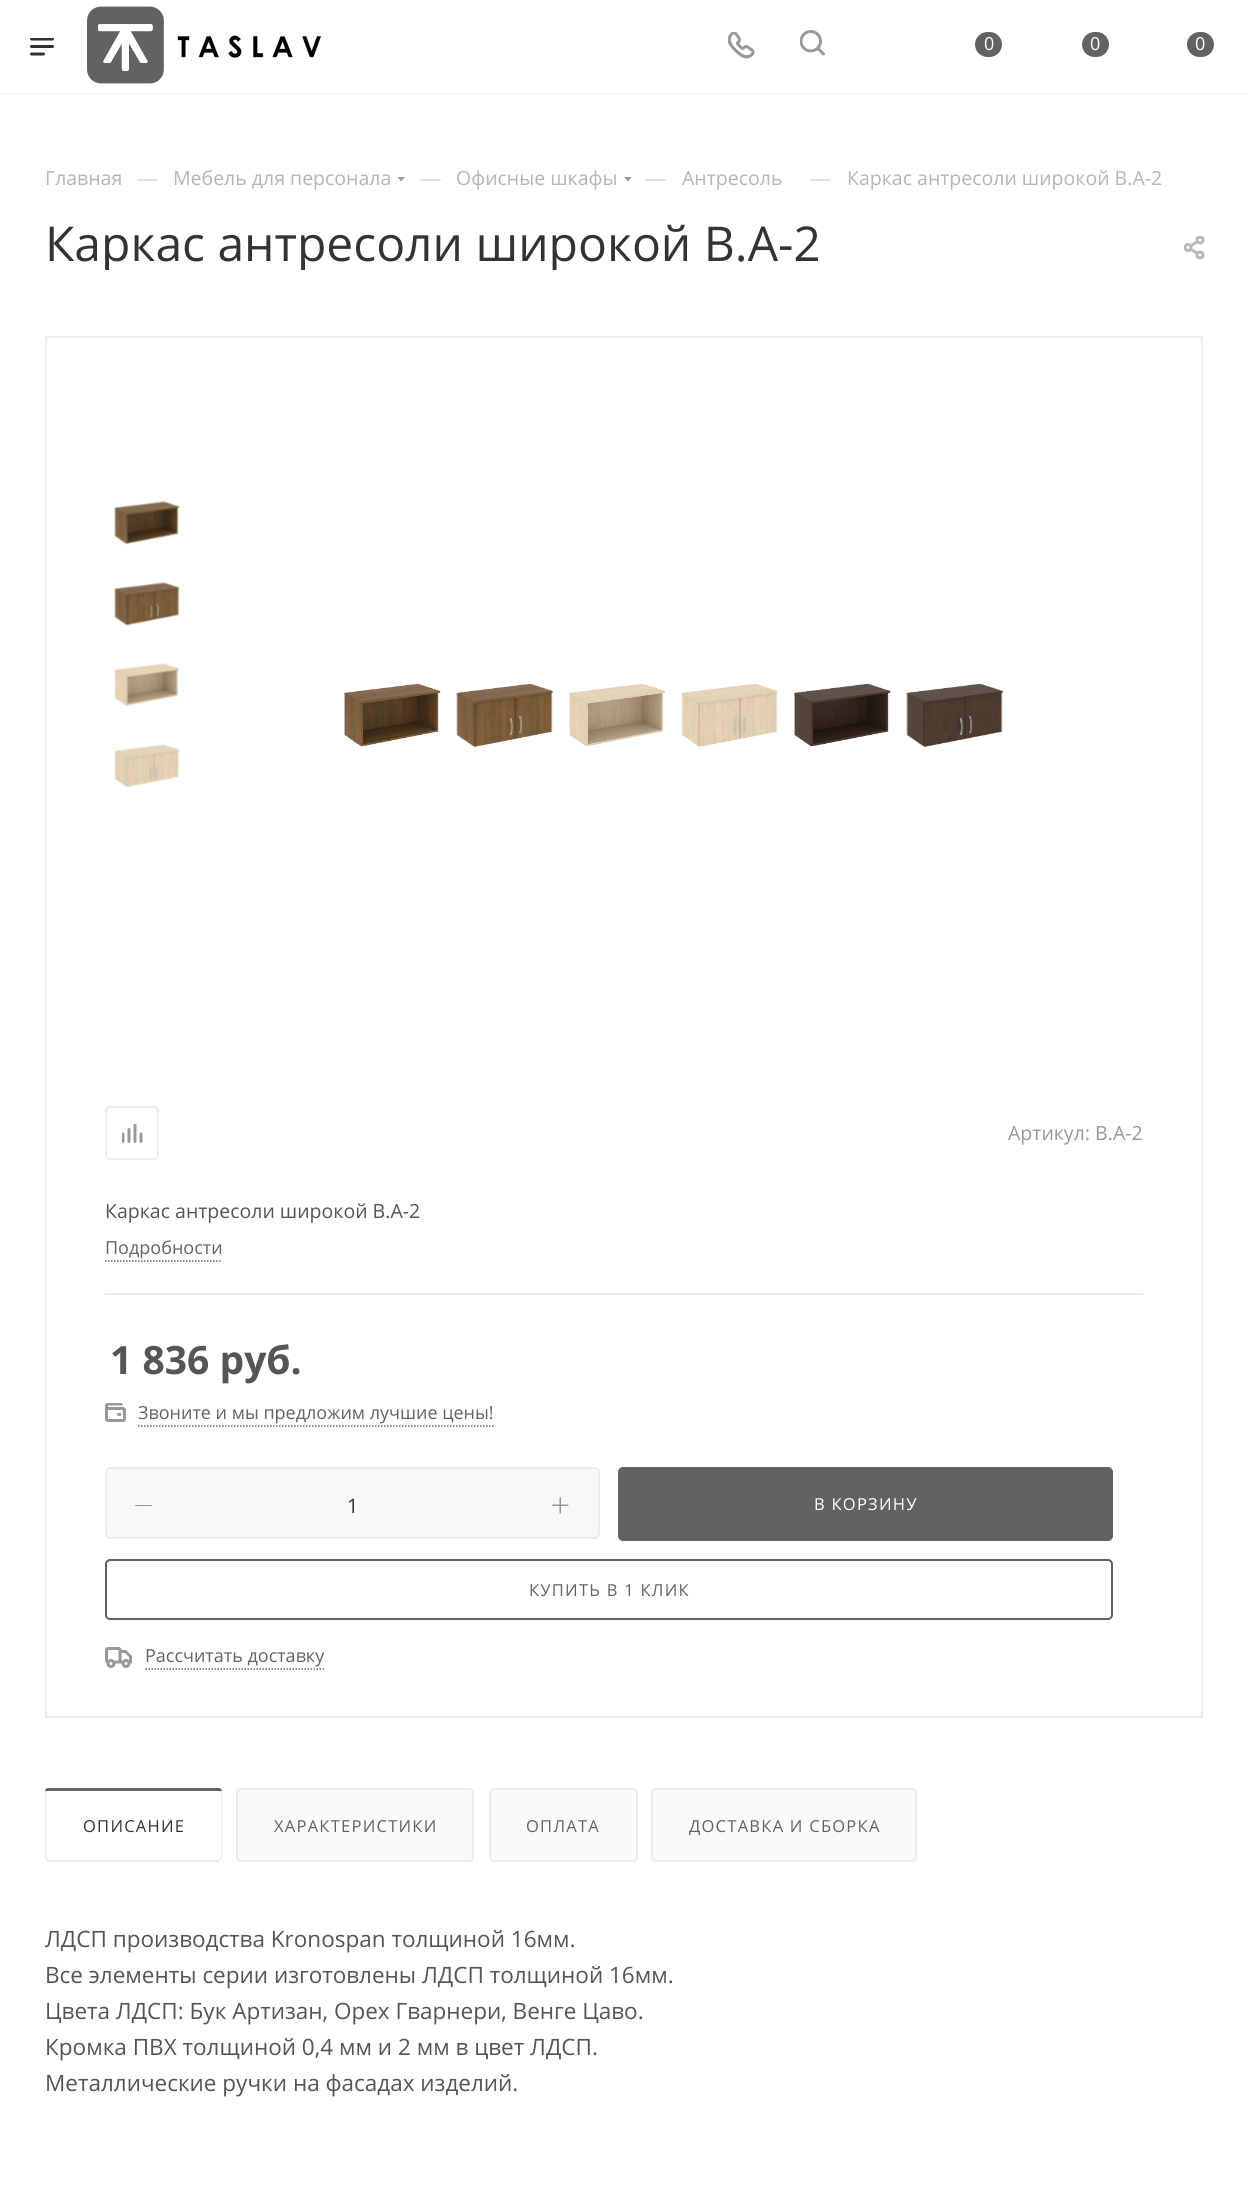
#include <cairo.h>
#include <math.h>
#include <stddef.h>


static void set_color(cairo_t *cr, unsigned color) {
    cairo_set_source_rgb(cr, (color >> 16) / 255.0, (color >> 8 & 255) / 255.0, (color & 255) / 255.0);
}

static void draw_text(cairo_t *cr, double x, double y, const char *s, const char *family, double size, int italic, int bold, unsigned color) {
    cairo_select_font_face(cr, family, italic ? CAIRO_FONT_SLANT_ITALIC : CAIRO_FONT_SLANT_NORMAL,
        bold ? CAIRO_FONT_WEIGHT_BOLD : CAIRO_FONT_WEIGHT_NORMAL);
    cairo_set_font_size(cr, size);
    set_color(cr, color);
    cairo_move_to(cr, x, y);
    cairo_show_text(cr, s);
}

static void draw_spaced(cairo_t *cr, double x, double y, const char *s, double letter, double word) {
    cairo_move_to(cr, x, y);
    while (*s) {
        char ch[5] = {0};
        int n = 0;
        do ch[n++] = *s++; while ((*s & 0xC0) == 0x80);
        cairo_show_text(cr, ch);
        cairo_rel_move_to(cr, letter + word * (*ch == ' '), 0);
    }
}

static void fill_rect(cairo_t *cr, double x, double y, double w, double h, unsigned color) {
    set_color(cr, color);
    cairo_rectangle(cr, x, y, w, h);
    cairo_fill(cr);
}

static void rounded_rect(cairo_t *cr, double x, double y, double w, double h, double r) {
    cairo_new_sub_path(cr);
    cairo_arc(cr, x + w - r, y + h - r, r, 0, M_PI / 2);
    cairo_arc(cr, x + r, y + h - r, r, M_PI / 2, M_PI);
    cairo_arc(cr, x + r, y + r, r, M_PI, 1.5 * M_PI);
    cairo_arc(cr, x + w - r, y + r, r, 1.5 * M_PI, 2 * M_PI);
    cairo_close_path(cr);
}

static void draw_image(cairo_t *cr, const char *path, double x, double y, double w, double h) {
    cairo_surface_t *image = cairo_image_surface_create_from_png(path);
    cairo_save(cr);
    cairo_set_source_surface(cr, image, x, y);
    cairo_rectangle(cr, x, y, w, h);
    cairo_fill(cr);
    cairo_restore(cr);
    cairo_surface_destroy(image);
}

int main(void) {
    cairo_surface_t *surface = cairo_image_surface_create(CAIRO_FORMAT_RGB24, 1247, 2192);
    cairo_t *cr = cairo_create(surface);
    cairo_font_options_t *options = cairo_font_options_create();
    cairo_font_options_set_hint_metrics(options, CAIRO_HINT_METRICS_OFF);
    cairo_font_options_set_hint_style(options, CAIRO_HINT_STYLE_NONE);
    cairo_set_font_options(cr, options);
    cairo_set_miter_limit(cr, 4);
    set_color(cr, 0xFFFFFF);
    cairo_paint(cr);
    fill_rect(cr, 0, 93, 1247, 2, 0xF8F8F8);
    draw_image(cr, "assets/img1.png", 30, 38, 24, 18);
    draw_image(cr, "assets/img2.png", 87, 6, 234, 78);
    draw_image(cr, "assets/img3.png", 728, 32, 27, 27);
    draw_image(cr, "assets/img4.png", 800, 30, 25, 26);
    set_color(cr, 0x626262);
    rounded_rect(cr, 975, 32, 27, 25, 12.5);
    cairo_fill(cr);
    draw_text(cr, 984, 50, "0", "Open Sans", 18, 0, 0, 0xFFFFFF);
    set_color(cr, 0x626262);
    rounded_rect(cr, 1082, 32, 27, 25, 12.5);
    cairo_fill(cr);
    draw_text(cr, 1090, 50, "0", "Open Sans", 18, 0, 0, 0xFFFFFF);
    set_color(cr, 0x626262);
    rounded_rect(cr, 1187, 32, 27, 25, 12.5);
    cairo_fill(cr);
    draw_text(cr, 1195, 50, "0", "Open Sans", 18, 0, 0, 0xFFFFFF);
    draw_text(cr, 45, 185, "Главная", "Open Sans", 19.5, 0, 0, 0xB6B5B5);
    draw_text(cr, 136, 186, "—", "Open Sans", 22.5, 0, 0, 0xDDDDDD);
    draw_text(cr, 173, 185, "Мебель для персонала", "Open Sans", 19.5, 0, 0, 0xB6B5B5);
    set_color(cr, 0x999999);
    cairo_set_fill_rule(cr, CAIRO_FILL_RULE_EVEN_ODD);
    cairo_new_path(cr);
    cairo_move_to(cr, 397.5, 177);
    cairo_line_to(cr, 405, 177);
    cairo_line_to(cr, 401, 181.5);
    cairo_close_path(cr);
    cairo_fill(cr);
    draw_text(cr, 419, 186, "—", "Open Sans", 22.5, 0, 0, 0xDDDDDD);
    draw_text(cr, 456, 185, "Офисные шкафы", "Open Sans", 19.5, 0, 0, 0xB6B5B5);
    set_color(cr, 0x999999);
    cairo_new_path(cr);
    cairo_move_to(cr, 624, 177);
    cairo_line_to(cr, 631.5, 177);
    cairo_line_to(cr, 628, 181.5);
    cairo_close_path(cr);
    cairo_fill(cr);
    draw_text(cr, 644, 186, "—", "Open Sans", 22.5, 0, 0, 0xDDDDDD);
    draw_text(cr, 682, 185, "Антресоль", "Open Sans", 19.5, 0, 0, 0xB6B5B5);
    draw_text(cr, 809, 186, "—", "Open Sans", 22.5, 0, 0, 0xDDDDDD);
    draw_text(cr, 847, 185, "Каркас антресоли широкой В.А-2", "Open Sans", 19.5, 0, 0, 0xB6B5B5);
    cairo_save(cr);
    cairo_set_fill_rule(cr, CAIRO_FILL_RULE_WINDING);
    cairo_rectangle(cr, 45, 216, 1089, 54);
    cairo_clip(cr);
    draw_text(cr, 45, 261, "Каркас антресоли широкой В.А-2", "Open Sans", 48, 0, 0, 0x333333);
    cairo_restore(cr);
    draw_image(cr, "assets/img5.png", 1184, 236, 21, 24);
    cairo_rectangle(cr, 46, 337, 1156, 1380);
    set_color(cr, 0xECECEC);
    cairo_stroke(cr);
    draw_image(cr, "assets/img6.png", 114, 501, 66, 44);
    draw_image(cr, "assets/img7.png", 114, 582, 66, 44);
    draw_image(cr, "assets/img8.png", 114, 663, 66, 43);
    draw_image(cr, "assets/img9.png", 114, 744, 66, 44);
    draw_image(cr, "assets/img10.png", 344, 683, 97, 64);
    draw_image(cr, "assets/img11.png", 456, 683, 98, 64);
    draw_image(cr, "assets/img12.png", 569, 683, 97, 64);
    draw_image(cr, "assets/img13.png", 681, 683, 97, 64);
    draw_image(cr, "assets/img14.png", 794, 683, 97, 64);
    draw_image(cr, "assets/img15.png", 906, 683, 98, 64);
    rounded_rect(cr, 106, 1107, 52, 52, 4);
    cairo_stroke(cr);
    draw_image(cr, "assets/img16.png", 122, 1124, 21, 19);
    draw_text(cr, 1008, 1140, "Артикул: В.А-2", "Open Sans", 19.5, 0, 0, 0x999999);
    fill_rect(cr, 105, 1293, 1038, 2, 0xECECEC);
    draw_text(cr, 105, 1218, "Каркас антресоли широкой В.А-2", "Open Sans", 19.5, 0, 0, 0x555555);
    draw_text(cr, 105, 1254, "Подробности", "Open Sans", 18, 0, 0, 0x626262);
    cairo_new_path(cr);
    cairo_move_to(cr, 105, 1261);
    cairo_line_to(cr, 222, 1261);
    cairo_set_line_width(cr, 1.5);
    cairo_set_dash(cr, (double[]){1.5, 1.5}, 2, 0);
    cairo_stroke(cr);
    draw_text(cr, 110, 1374, "1 836 руб.", "Open Sans", 39, 0, 1, 0x555555);
    draw_image(cr, "assets/img17.png", 105, 1403, 21, 19);
    draw_text(cr, 138, 1419, "Звоните и мы предложим лучшие цены!", "Open Sans", 18, 0, 0, 0x626262);
    cairo_new_path(cr);
    cairo_move_to(cr, 138, 1426);
    cairo_line_to(cr, 493.5, 1426);
    set_color(cr, 0x666666);
    cairo_stroke(cr);
    set_color(cr, 0xF8F8F8);
    rounded_rect(cr, 106, 1468, 493, 70, 4);
    cairo_fill_preserve(cr);
    set_color(cr, 0xECECEC);
    cairo_set_line_width(cr, 2);
    cairo_set_dash(cr, NULL, 0, 0);
    cairo_stroke(cr);
    set_color(cr, 0x969696);
    rounded_rect(cr, 135, 1505, 17, 1, 0.5);
    cairo_fill(cr);
    draw_text(cr, 347, 1513, "1", "Open Sans", 20, 0, 0, 0x333333);
    draw_image(cr, "assets/img18.png", 552, 1497, 17, 17);
    set_color(cr, 0x626262);
    rounded_rect(cr, 619, 1468, 493, 72, 4);
    cairo_fill_preserve(cr);
    cairo_stroke(cr);
    cairo_set_font_size(cr, 16.5);
    set_color(cr, 0xFFFFFF);
    draw_spaced(cr, 814, 1510, "В КОРЗИНУ", 1.25, 0);
    rounded_rect(cr, 106, 1560, 1006, 59, 4);
    set_color(cr, 0x626262);
    cairo_stroke(cr);
    draw_spaced(cr, 529, 1596, "КУПИТЬ В 1 КЛИК", 1.25, 0);
    draw_image(cr, "assets/img19.png", 105, 1647, 27, 21);
    draw_text(cr, 145, 1662, "Рассчитать доставку", "Open Sans", 18, 0, 0, 0x626262);
    cairo_new_path(cr);
    cairo_move_to(cr, 145.5, 1669);
    cairo_line_to(cr, 324, 1669);
    set_color(cr, 0x666666);
    cairo_set_line_width(cr, 1.5);
    cairo_set_dash(cr, (double[]){1.5, 1.5}, 2, 0);
    cairo_stroke(cr);
    set_color(cr, 0xFAFAFA);
    rounded_rect(cr, 46, 1789, 175, 72, 4);
    cairo_fill_preserve(cr);
    set_color(cr, 0xECECEC);
    cairo_set_line_width(cr, 2);
    cairo_set_dash(cr, NULL, 0, 0);
    cairo_stroke(cr);
    set_color(cr, 0xFFFFFF);
    rounded_rect(cr, 47, 1790, 174, 70, 5);
    cairo_fill(cr);
    set_color(cr, 0x626262);
    cairo_new_path(cr);
    cairo_move_to(cr, 48, 1788);
    cairo_line_to(cr, 219, 1788);
    cairo_curve_to(cr, 220.5, 1788, 222, 1789.5, 222, 1791);
    cairo_line_to(cr, 45, 1791);
    cairo_curve_to(cr, 45, 1789.5, 46.5, 1788, 48, 1788);
    cairo_close_path(cr);
    cairo_fill(cr);
    cairo_set_font_size(cr, 16.5);
    set_color(cr, 0x333333);
    draw_spaced(cr, 83, 1832, "ОПИСАНИЕ", 1.25, 0);
    set_color(cr, 0xFAFAFA);
    rounded_rect(cr, 237, 1789, 236, 72, 4);
    cairo_fill_preserve(cr);
    set_color(cr, 0xECECEC);
    cairo_stroke(cr);
    set_color(cr, 0x626262);
    draw_spaced(cr, 274, 1832, "ХАРАКТЕРИСТИКИ", 1.25, 0);
    set_color(cr, 0xFAFAFA);
    rounded_rect(cr, 490, 1789, 147, 72, 4);
    cairo_fill_preserve(cr);
    set_color(cr, 0xECECEC);
    cairo_stroke(cr);
    set_color(cr, 0x626262);
    draw_spaced(cr, 526, 1832, "ОПЛАТА", 1.25, 0);
    set_color(cr, 0xFAFAFA);
    rounded_rect(cr, 652, 1789, 264, 72, 4);
    cairo_fill_preserve(cr);
    set_color(cr, 0xECECEC);
    cairo_stroke(cr);
    set_color(cr, 0x626262);
    draw_spaced(cr, 689, 1832, "ДОСТАВКА И СБОРКА", 1.25, 0);
    draw_text(cr, 45, 1947, "ЛДСП производства Kronospan толщиной 16мм.", "Open Sans", 22.5, 0, 0, 0x555555);
    draw_text(cr, 45, 1983, "Все элементы серии изготовлены ЛДСП толщиной 16мм.", "Open Sans", 22.5, 0, 0, 0x555555);
    draw_text(cr, 45, 2019, "Цвета ЛДСП: Бук Артизан, Орех Гварнери, Венге Цаво.", "Open Sans", 22.5, 0, 0, 0x555555);
    draw_text(cr, 45, 2055, "Кромка ПВХ толщиной 0,4 мм и 2 мм в цвет ЛДСП.", "Open Sans", 22.5, 0, 0, 0x555555);
    draw_text(cr, 45, 2091, "Металлические ручки на фасадах изделий.", "Open Sans", 22.5, 0, 0, 0x555555);
    cairo_surface_write_to_png(surface, "output.png");
    cairo_font_options_destroy(options);
    cairo_destroy(cr);
    cairo_surface_destroy(surface);
    return 0;
}
